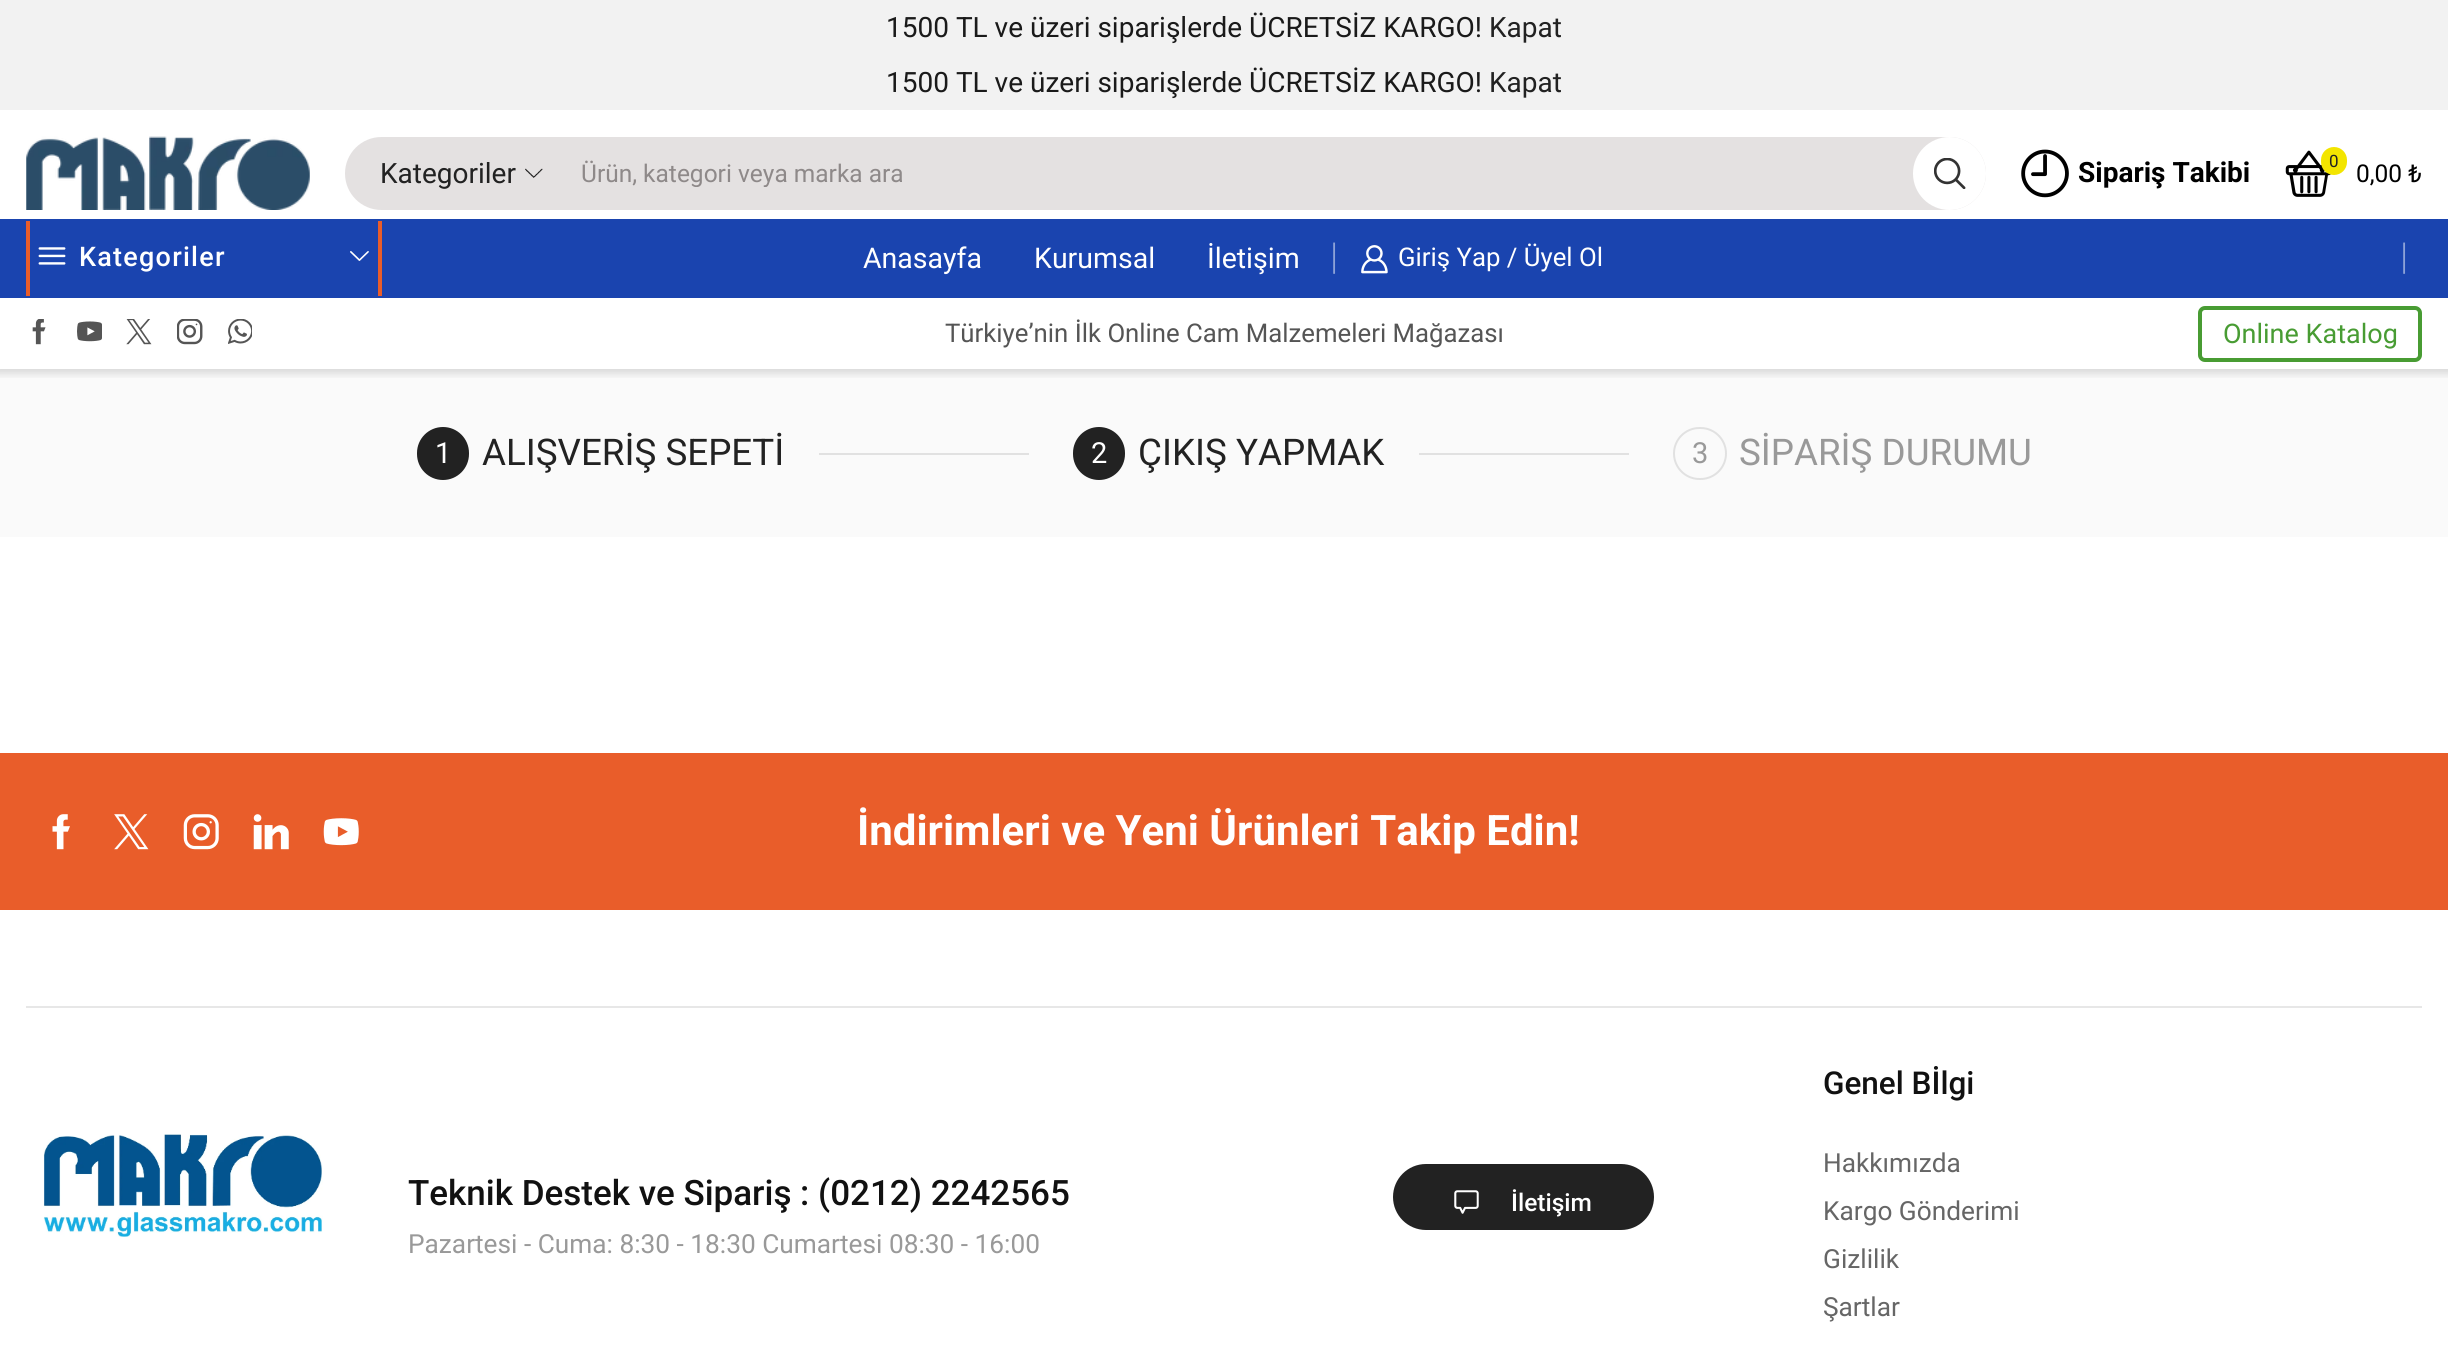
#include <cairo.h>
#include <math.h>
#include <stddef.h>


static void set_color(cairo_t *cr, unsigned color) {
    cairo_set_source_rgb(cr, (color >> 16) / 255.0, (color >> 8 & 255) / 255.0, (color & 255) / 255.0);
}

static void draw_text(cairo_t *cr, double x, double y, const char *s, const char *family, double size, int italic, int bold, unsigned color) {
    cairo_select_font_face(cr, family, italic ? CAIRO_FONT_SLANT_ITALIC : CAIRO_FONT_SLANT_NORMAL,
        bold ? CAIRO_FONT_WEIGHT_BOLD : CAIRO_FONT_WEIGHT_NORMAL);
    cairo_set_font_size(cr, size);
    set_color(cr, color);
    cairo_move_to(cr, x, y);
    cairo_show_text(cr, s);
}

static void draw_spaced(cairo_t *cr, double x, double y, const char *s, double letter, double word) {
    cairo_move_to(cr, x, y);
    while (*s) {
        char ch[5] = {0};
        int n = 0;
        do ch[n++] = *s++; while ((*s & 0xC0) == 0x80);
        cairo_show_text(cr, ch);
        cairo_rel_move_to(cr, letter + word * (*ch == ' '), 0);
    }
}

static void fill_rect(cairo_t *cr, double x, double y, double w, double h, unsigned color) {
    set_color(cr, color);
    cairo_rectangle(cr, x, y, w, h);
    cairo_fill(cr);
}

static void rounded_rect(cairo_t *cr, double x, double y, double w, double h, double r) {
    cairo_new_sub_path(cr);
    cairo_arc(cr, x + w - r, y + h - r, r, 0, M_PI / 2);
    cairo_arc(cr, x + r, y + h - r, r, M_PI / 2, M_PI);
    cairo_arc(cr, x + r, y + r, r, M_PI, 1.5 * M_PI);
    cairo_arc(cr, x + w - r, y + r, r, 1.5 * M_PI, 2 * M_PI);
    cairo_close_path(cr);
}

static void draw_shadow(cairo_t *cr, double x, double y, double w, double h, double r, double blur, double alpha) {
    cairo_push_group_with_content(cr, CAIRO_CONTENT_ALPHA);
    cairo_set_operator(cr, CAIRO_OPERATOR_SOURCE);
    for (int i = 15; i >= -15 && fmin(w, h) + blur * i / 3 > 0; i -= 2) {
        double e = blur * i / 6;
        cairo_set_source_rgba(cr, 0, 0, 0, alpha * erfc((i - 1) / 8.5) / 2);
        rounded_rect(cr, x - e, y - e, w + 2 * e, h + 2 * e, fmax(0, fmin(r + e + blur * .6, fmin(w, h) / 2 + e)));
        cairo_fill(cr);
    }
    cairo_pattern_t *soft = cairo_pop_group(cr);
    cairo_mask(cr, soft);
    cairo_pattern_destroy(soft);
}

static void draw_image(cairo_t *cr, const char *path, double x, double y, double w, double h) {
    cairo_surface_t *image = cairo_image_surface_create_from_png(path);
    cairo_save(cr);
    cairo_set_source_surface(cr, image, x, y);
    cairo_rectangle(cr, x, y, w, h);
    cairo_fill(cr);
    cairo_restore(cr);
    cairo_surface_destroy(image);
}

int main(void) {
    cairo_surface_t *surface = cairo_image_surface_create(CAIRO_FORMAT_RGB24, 2448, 1365);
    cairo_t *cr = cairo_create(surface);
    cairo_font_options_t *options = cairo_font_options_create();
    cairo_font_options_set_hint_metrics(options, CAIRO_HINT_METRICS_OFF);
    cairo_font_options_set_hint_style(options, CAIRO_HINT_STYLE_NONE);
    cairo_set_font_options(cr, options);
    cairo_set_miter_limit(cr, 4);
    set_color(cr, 0xFFFFFF);
    cairo_paint(cr);
    fill_rect(cr, 0, 0, 2448, 110, 0xF2F2F2);
    draw_text(cr, 886, 37, "1500 TL ve üzeri siparişlerde ÜCRETSİZ KARGO!", "Roboto", 28, 0, 0, 0x1A1A1A);
    draw_text(cr, 1489, 37, "Kapat", "Roboto", 28, 0, 0, 0x222222);
    draw_text(cr, 886, 92, "1500 TL ve üzeri siparişlerde ÜCRETSİZ KARGO!", "Roboto", 28, 0, 0, 0x1A1A1A);
    draw_text(cr, 1489, 92, "Kapat", "Roboto", 28, 0, 0, 0x222222);
    draw_image(cr, "assets/img1.png", 26, 136, 284, 74);
    set_color(cr, 0xE4E1E1);
    rounded_rect(cr, 345, 137, 1641, 73, 36.5);
    cairo_fill(cr);
    draw_image(cr, "assets/img2.png", 525, 168, 18, 10);
    draw_text(cr, 380, 183, "Kategoriler", "Roboto", 28, 0, 0, 0x222222);
    cairo_save(cr);
    cairo_rectangle(cr, 581, 159, 1297, 28);
    cairo_clip(cr);
    draw_text(cr, 581, 182, "Ürün, kategori veya marka ara", "Roboto", 24.5, 0, 0, 0x8E8989);
    cairo_restore(cr);
    set_color(cr, 0xFFFFFF);
    cairo_new_path(cr);
    cairo_arc(cr, 1949.5, 173.5, 36.5, 0, 2 * M_PI);
    cairo_fill(cr);
    draw_image(cr, "assets/img3.png", 1934, 158, 32, 31);
    draw_image(cr, "assets/img4.png", 2021, 149, 48, 49);
    draw_text(cr, 2078, 182, "Sipariş Takibi", "Roboto", 28, 0, 1, 0x000000);
    draw_image(cr, "assets/img5.png", 2285, 150, 46, 47);
    set_color(cr, 0xF3E500);
    rounded_rect(cr, 2321, 147, 26, 28, 13);
    cairo_fill(cr);
    draw_text(cr, 2329, 167, "0", "Roboto", 17, 0, 0, 0x222222);
    draw_text(cr, 2356, 182, "0,00 ₺", "Roboto", 24.5, 0, 0, 0x000000);
    fill_rect(cr, 0, 369, 2448, 168, 0xFAFAFA);
    cairo_save(cr);
    cairo_rectangle(cr, 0, 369, 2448, 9);
    cairo_clip(cr);
    set_color(cr, 0x000000);
    draw_shadow(cr, -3, 294, 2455, 79, 0, 4.5, 0.15);
    cairo_restore(cr);
    fill_rect(cr, 0, 219, 2448, 79, 0x1A44AF);
    fill_rect(cr, 378, 221, 4, 75, 0xE95D2A);
    fill_rect(cr, 26, 221, 4, 75, 0xE95D2A);
    draw_image(cr, "assets/img6.png", 38, 247, 28, 18);
    cairo_select_font_face(cr, "Roboto Medium", CAIRO_FONT_SLANT_NORMAL, CAIRO_FONT_WEIGHT_NORMAL);
    cairo_set_font_size(cr, 27);
    set_color(cr, 0xFFFFFF);
    draw_spaced(cr, 79, 266, "Kategoriler", 1.25, 0);
    draw_image(cr, "assets/img7.png", 350, 251, 19, 10);
    draw_text(cr, 863, 268, "Anasayfa", "Roboto", 28.5, 0, 0, 0xFFFFFF);
    draw_text(cr, 1034, 268, "Kurumsal", "Roboto", 28.5, 0, 0, 0xFFFFFF);
    draw_text(cr, 1207, 268, "İletişim", "Roboto", 28.5, 0, 0, 0xFFFFFF);
    draw_text(cr, 1325, 266, "│", "Liberation Serif", 25.75, 0, 0, 0x8DA2D7);
    draw_image(cr, "assets/img8.png", 1361, 245, 27, 29);
    draw_text(cr, 1398, 266, "Giriş Yap / Üyel Ol", "Roboto", 25.75, 0, 0, 0xFFFFFF);
    draw_text(cr, 2395, 266, "│", "Liberation Serif", 25.75, 0, 0, 0x8DA2D7);
    draw_image(cr, "assets/img9.png", 32, 319, 14, 26);
    draw_image(cr, "assets/img10.png", 77, 321, 25, 21);
    draw_image(cr, "assets/img11.png", 126, 319, 26, 26);
    draw_image(cr, "assets/img12.png", 177, 319, 26, 26);
    draw_image(cr, "assets/img13.png", 228, 319, 24, 25);
    draw_text(cr, 945, 342, "Türkiye’nin İlk Online Cam Malzemeleri Mağazası", "Roboto", 25.75, 0, 0, 0x555555);
    rounded_rect(cr, 2200, 308, 220, 52, 5);
    set_color(cr, 0x489C33);
    cairo_set_line_width(cr, 4);
    cairo_stroke(cr);
    draw_text(cr, 2223, 343, "Online Katalog", "Roboto", 27, 0, 0, 0x489C33);
    set_color(cr, 0x222222);
    rounded_rect(cr, 418, 428, 50, 51, 25);
    cairo_fill_preserve(cr);
    cairo_set_line_width(cr, 2);
    cairo_stroke(cr);
    draw_text(cr, 435, 463, "1", "Roboto", 29, 0, 0, 0xFFFFFF);
    draw_text(cr, 482, 465, "ALIŞVERİŞ SEPETİ", "Roboto", 36.75, 0, 0, 0x222222);
    fill_rect(cr, 819, 453, 210, 2, 0xE1E1E1);
    set_color(cr, 0x222222);
    rounded_rect(cr, 1074, 428, 50, 51, 25);
    cairo_fill_preserve(cr);
    cairo_stroke(cr);
    draw_text(cr, 1091, 463, "2", "Roboto", 29, 0, 0, 0xFFFFFF);
    draw_text(cr, 1138, 465, "ÇIKIŞ YAPMAK", "Roboto", 36.75, 0, 0, 0x222222);
    fill_rect(cr, 1419, 453, 210, 2, 0xE1E1E1);
    rounded_rect(cr, 1674, 428, 52, 51, 25.5);
    cairo_stroke(cr);
    draw_text(cr, 1692, 463, "3", "Roboto", 29, 0, 0, 0x999999);
    draw_text(cr, 1739, 465, "SİPARİŞ DURUMU", "Roboto", 36.75, 0, 0, 0x999999);
    fill_rect(cr, 0, 753, 2448, 157, 0xE95D2A);
    draw_image(cr, "assets/img14.png", 52, 814, 18, 36);
    draw_image(cr, "assets/img15.png", 114, 814, 35, 36);
    draw_image(cr, "assets/img16.png", 183, 814, 36, 36);
    draw_image(cr, "assets/img17.png", 253, 814, 36, 36);
    draw_image(cr, "assets/img18.png", 323, 818, 36, 28);
    draw_text(cr, 857, 845, "İndirimleri ve Yeni Ürünleri Takip Edin!", "Roboto", 42, 0, 1, 0xFFFFFF);
    fill_rect(cr, 26, 1006, 2396, 2, 0xE7E7E7);
    draw_image(cr, "assets/img19.png", 43, 1134, 280, 103);
    draw_text(cr, 408, 1205, "Teknik Destek ve Sipariş : (0212) 2242565", "Roboto Medium", 35, 0, 0, 0x111111);
    draw_text(cr, 408, 1253, "Pazartesi - Cuma: 8:30 - 18:30 Cumartesi 08:30 - 16:00", "Roboto", 26.25, 0, 0, 0x999999);
    set_color(cr, 0x222222);
    rounded_rect(cr, 1395, 1166, 257, 62, 31);
    cairo_fill_preserve(cr);
    cairo_set_line_width(cr, 4);
    cairo_stroke(cr);
    draw_image(cr, "assets/img20.png", 1454, 1190, 25, 24);
    draw_text(cr, 1511, 1211, "İletişim", "Roboto Medium", 24.5, 0, 0, 0xFFFFFF);
    draw_text(cr, 1823, 1094, "Genel Bİlgi", "Roboto Medium", 31.5, 0, 0, 0x111111);
    draw_text(cr, 1823, 1172, "Hakkımızda", "Roboto", 26.25, 0, 0, 0x666666);
    draw_text(cr, 1823, 1220, "Kargo Gönderimi", "Roboto", 26.25, 0, 0, 0x666666);
    draw_text(cr, 1823, 1268, "Gizlilik", "Roboto", 26.25, 0, 0, 0x666666);
    draw_text(cr, 1823, 1316, "Şartlar", "Roboto", 26.25, 0, 0, 0x666666);
    cairo_surface_write_to_png(surface, "output.png");
    cairo_font_options_destroy(options);
    cairo_destroy(cr);
    cairo_surface_destroy(surface);
    return 0;
}
